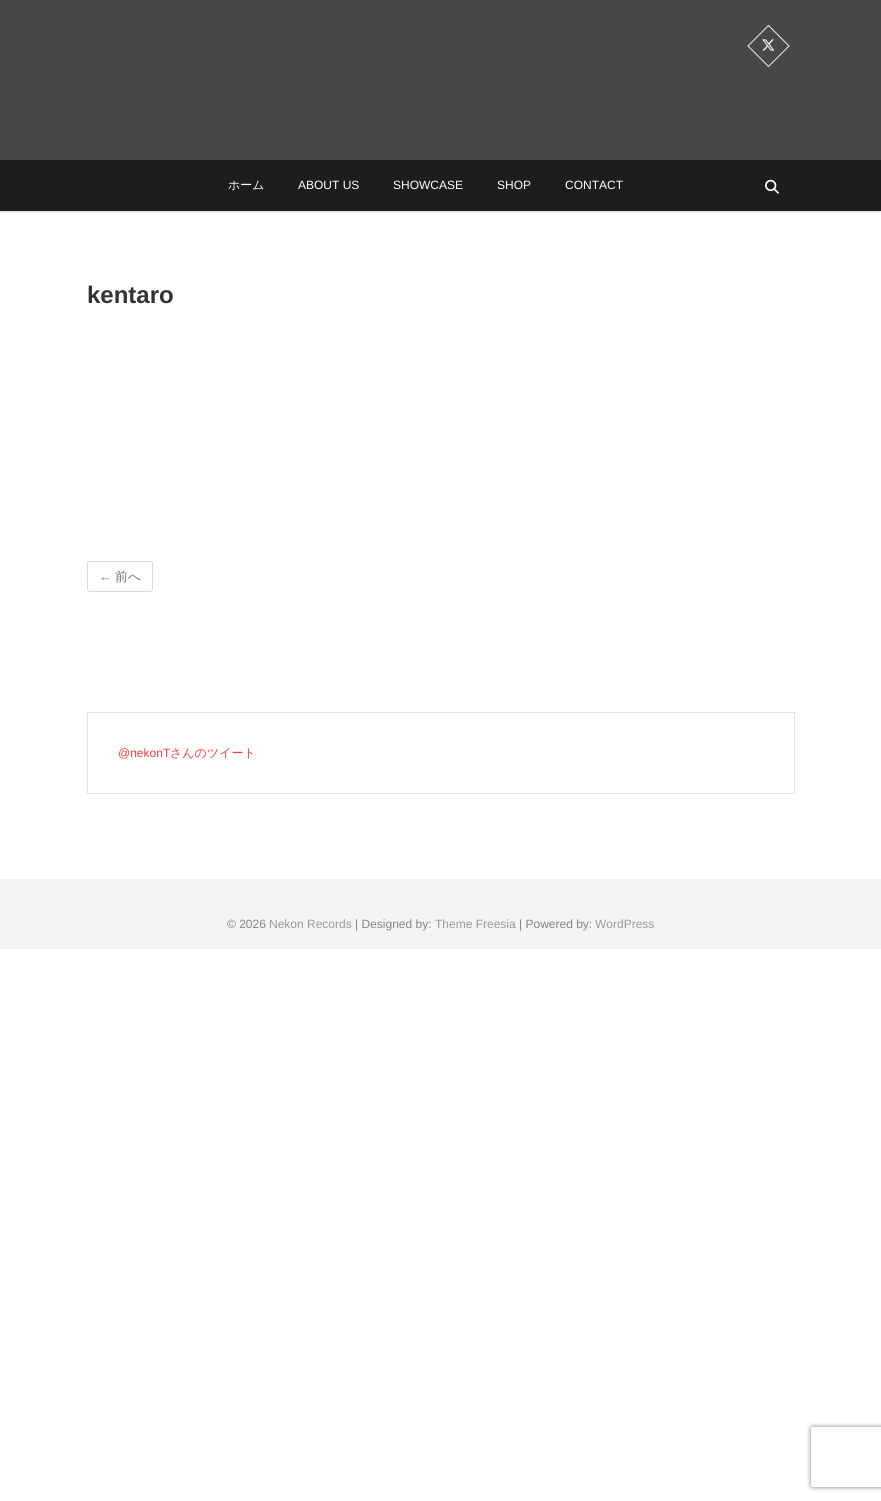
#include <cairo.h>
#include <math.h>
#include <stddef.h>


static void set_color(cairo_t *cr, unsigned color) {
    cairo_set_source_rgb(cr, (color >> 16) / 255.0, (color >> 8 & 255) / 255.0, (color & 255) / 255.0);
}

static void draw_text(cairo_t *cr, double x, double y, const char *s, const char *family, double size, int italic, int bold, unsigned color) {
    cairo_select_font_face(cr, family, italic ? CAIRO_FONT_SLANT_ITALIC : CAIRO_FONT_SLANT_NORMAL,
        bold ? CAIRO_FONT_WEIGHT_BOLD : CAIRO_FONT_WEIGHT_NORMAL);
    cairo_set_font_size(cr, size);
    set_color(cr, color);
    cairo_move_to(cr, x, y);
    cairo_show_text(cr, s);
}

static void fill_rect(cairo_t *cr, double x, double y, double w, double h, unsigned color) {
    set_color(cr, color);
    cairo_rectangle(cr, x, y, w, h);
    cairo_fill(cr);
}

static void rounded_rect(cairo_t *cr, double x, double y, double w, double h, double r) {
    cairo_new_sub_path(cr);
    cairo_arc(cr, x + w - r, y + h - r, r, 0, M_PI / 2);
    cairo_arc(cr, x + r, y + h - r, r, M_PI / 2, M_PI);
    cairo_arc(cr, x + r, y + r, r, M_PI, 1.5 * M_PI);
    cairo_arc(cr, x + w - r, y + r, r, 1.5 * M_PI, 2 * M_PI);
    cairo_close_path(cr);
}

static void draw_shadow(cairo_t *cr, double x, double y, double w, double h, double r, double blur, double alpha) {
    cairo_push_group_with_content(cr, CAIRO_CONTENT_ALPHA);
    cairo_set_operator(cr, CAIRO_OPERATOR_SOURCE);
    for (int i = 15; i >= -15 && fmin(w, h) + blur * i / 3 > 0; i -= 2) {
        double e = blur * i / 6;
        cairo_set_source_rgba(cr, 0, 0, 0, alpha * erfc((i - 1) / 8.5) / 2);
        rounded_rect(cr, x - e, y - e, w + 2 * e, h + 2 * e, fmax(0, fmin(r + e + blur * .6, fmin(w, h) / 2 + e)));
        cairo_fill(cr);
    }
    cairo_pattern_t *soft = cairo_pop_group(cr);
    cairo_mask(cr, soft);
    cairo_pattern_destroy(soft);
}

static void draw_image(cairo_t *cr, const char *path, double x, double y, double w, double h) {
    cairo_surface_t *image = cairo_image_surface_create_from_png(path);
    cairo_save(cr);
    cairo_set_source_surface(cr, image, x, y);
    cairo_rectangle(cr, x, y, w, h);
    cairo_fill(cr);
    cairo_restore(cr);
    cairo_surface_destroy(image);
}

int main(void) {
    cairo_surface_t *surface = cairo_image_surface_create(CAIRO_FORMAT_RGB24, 881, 1501);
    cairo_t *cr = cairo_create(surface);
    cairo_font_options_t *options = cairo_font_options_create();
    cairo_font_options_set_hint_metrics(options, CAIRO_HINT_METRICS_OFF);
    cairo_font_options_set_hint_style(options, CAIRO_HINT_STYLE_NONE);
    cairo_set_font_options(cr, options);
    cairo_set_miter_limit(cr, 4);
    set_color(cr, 0xFFFFFF);
    cairo_paint(cr);
    fill_rect(cr, 0, 0, 881, 160, 0x484848);
    cairo_new_path(cr);
    cairo_move_to(cr, 748, 46);
    cairo_line_to(cr, 768.5, 25.5);
    cairo_line_to(cr, 789, 46);
    cairo_line_to(cr, 768.5, 66.5);
    cairo_close_path(cr);
    set_color(cr, 0xEEEEEE);
    cairo_set_line_width(cr, 1);
    cairo_stroke(cr);
    draw_image(cr, "assets/img1.png", 762, 39, 13, 12);
    set_color(cr, 0x000000);
    draw_shadow(cr, 0, 161, 881, 51, 0, 1, 0.15);
    fill_rect(cr, 0, 160, 881, 51, 0x1D1D1D);
    draw_text(cr, 228, 189, "ホーム", "WenQuanYi Zen Hei Medium", 12, 0, 0, 0xFFFFFF);
    draw_text(cr, 298, 189, "ABOUT US", "Liberation Sans", 12, 0, 0, 0xFFFFFF);
    draw_text(cr, 393, 189, "SHOWCASE", "Liberation Sans", 12, 0, 0, 0xFFFFFF);
    draw_text(cr, 497, 189, "SHOP", "Liberation Sans", 12, 0, 0, 0xFFFFFF);
    draw_text(cr, 565, 189, "CONTACT", "Liberation Sans", 12, 0, 0, 0xFFFFFF);
    draw_image(cr, "assets/img2.png", 765, 179, 14, 15);
    draw_text(cr, 87, 303, "kentaro", "Liberation Sans", 24, 0, 1, 0x333333);
    rounded_rect(cr, 87.5, 561.5, 65, 30, 2.5);
    set_color(cr, 0xD9D9D9);
    cairo_stroke(cr);
    draw_text(cr, 99, 581, "←", "Liberation Sans", 13, 0, 0, 0x747474);
    draw_text(cr, 115, 581, "前へ", "WenQuanYi Zen Hei Medium", 13, 0, 0, 0x747474);
    cairo_rectangle(cr, 87.5, 712.5, 707, 81);
    set_color(cr, 0xE4E4E4);
    cairo_stroke(cr);
    draw_text(cr, 118, 757, "@nekonT", "Liberation Sans", 12, 0, 0, 0xFF3838);
    draw_text(cr, 170, 757, "さんのツイート", "WenQuanYi Zen Hei Medium", 12, 0, 0, 0xFF3838);
    fill_rect(cr, 0, 879, 881, 70, 0xF4F4F4);
    draw_text(cr, 227, 928, "© 2026", "Liberation Sans", 12, 0, 0, 0x848484);
    draw_text(cr, 269, 928, "Nekon Records", "Liberation Sans", 12, 0, 0, 0x999999);
    draw_text(cr, 355, 928, "| Designed by:", "Liberation Sans", 12, 0, 0, 0x848484);
    draw_text(cr, 435, 928, "Theme Freesia", "Liberation Sans", 12, 0, 0, 0x999999);
    draw_text(cr, 519, 928, "| Powered by:", "Liberation Sans", 12, 0, 0, 0x848484);
    draw_text(cr, 595, 928, "WordPress", "Liberation Sans", 12, 0, 0, 0x999999);
    cairo_save(cr);
    cairo_set_fill_rule(cr, CAIRO_FILL_RULE_EVEN_ODD);
    cairo_new_path(cr);
    cairo_move_to(cr, 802, 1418);
    cairo_line_to(cr, 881, 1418);
    cairo_line_to(cr, 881, 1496);
    cairo_line_to(cr, 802, 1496);
    cairo_close_path(cr);
    cairo_move_to(cr, 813, 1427);
    cairo_line_to(cr, 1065, 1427);
    cairo_curve_to(cr, 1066, 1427, 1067, 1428, 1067, 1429);
    cairo_line_to(cr, 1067, 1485);
    cairo_curve_to(cr, 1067, 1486, 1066, 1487, 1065, 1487);
    cairo_line_to(cr, 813, 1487);
    cairo_curve_to(cr, 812, 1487, 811, 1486, 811, 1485);
    cairo_line_to(cr, 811, 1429);
    cairo_curve_to(cr, 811, 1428, 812, 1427, 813, 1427);
    cairo_close_path(cr);
    cairo_clip(cr);
    set_color(cr, 0x808080);
    draw_shadow(cr, 811, 1427, 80, 60, 2, 2.5, 1);
    cairo_restore(cr);
    cairo_surface_write_to_png(surface, "output.png");
    cairo_font_options_destroy(options);
    cairo_destroy(cr);
    cairo_surface_destroy(surface);
    return 0;
}
